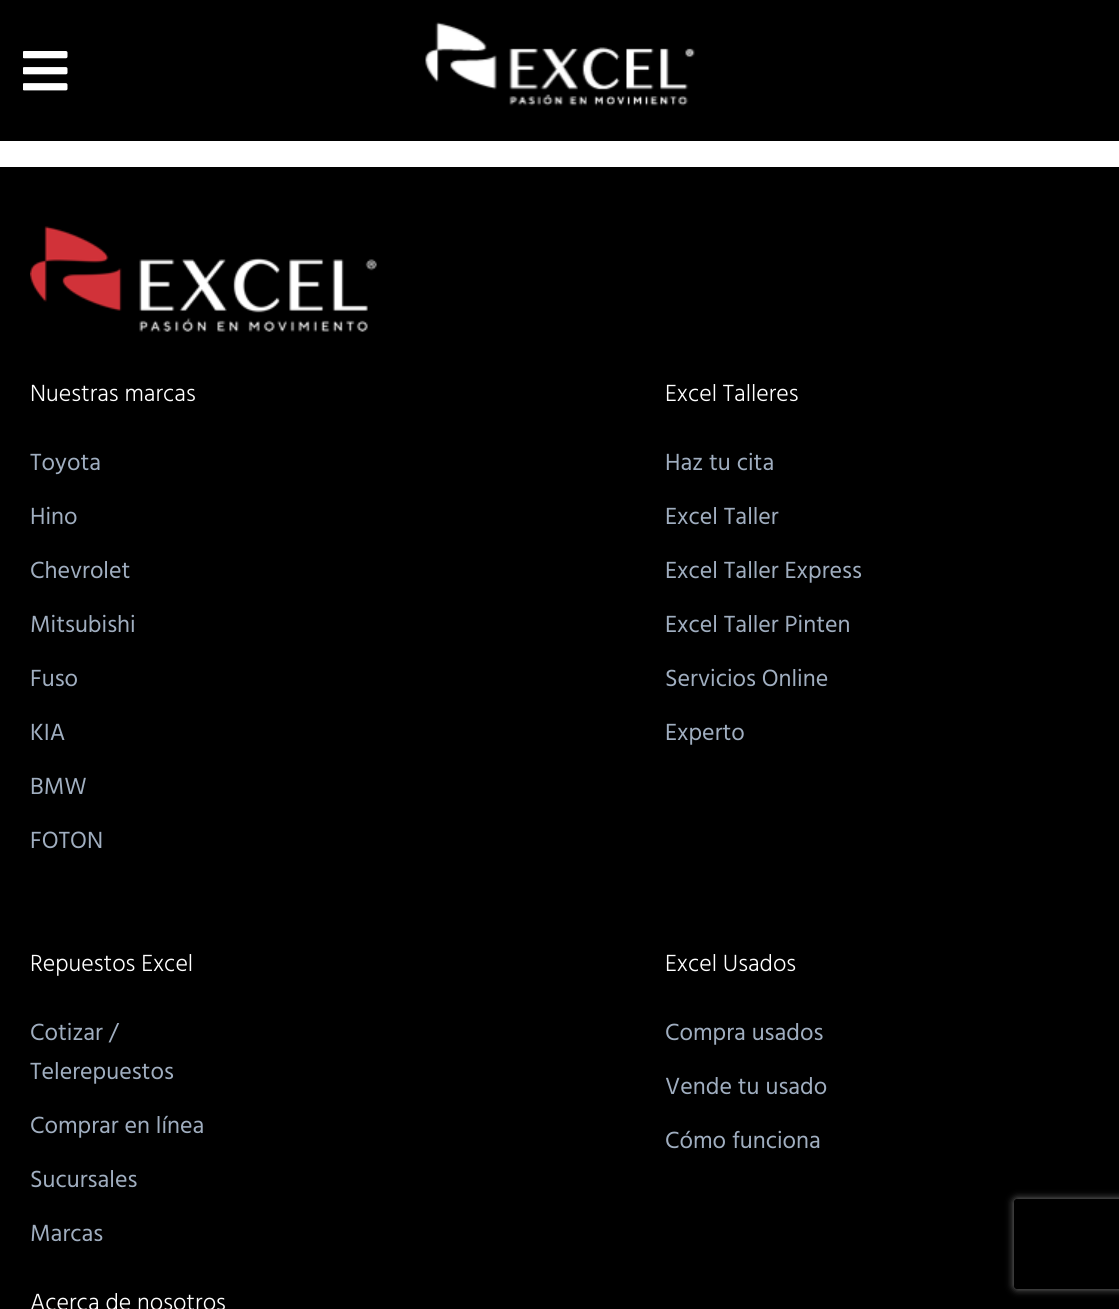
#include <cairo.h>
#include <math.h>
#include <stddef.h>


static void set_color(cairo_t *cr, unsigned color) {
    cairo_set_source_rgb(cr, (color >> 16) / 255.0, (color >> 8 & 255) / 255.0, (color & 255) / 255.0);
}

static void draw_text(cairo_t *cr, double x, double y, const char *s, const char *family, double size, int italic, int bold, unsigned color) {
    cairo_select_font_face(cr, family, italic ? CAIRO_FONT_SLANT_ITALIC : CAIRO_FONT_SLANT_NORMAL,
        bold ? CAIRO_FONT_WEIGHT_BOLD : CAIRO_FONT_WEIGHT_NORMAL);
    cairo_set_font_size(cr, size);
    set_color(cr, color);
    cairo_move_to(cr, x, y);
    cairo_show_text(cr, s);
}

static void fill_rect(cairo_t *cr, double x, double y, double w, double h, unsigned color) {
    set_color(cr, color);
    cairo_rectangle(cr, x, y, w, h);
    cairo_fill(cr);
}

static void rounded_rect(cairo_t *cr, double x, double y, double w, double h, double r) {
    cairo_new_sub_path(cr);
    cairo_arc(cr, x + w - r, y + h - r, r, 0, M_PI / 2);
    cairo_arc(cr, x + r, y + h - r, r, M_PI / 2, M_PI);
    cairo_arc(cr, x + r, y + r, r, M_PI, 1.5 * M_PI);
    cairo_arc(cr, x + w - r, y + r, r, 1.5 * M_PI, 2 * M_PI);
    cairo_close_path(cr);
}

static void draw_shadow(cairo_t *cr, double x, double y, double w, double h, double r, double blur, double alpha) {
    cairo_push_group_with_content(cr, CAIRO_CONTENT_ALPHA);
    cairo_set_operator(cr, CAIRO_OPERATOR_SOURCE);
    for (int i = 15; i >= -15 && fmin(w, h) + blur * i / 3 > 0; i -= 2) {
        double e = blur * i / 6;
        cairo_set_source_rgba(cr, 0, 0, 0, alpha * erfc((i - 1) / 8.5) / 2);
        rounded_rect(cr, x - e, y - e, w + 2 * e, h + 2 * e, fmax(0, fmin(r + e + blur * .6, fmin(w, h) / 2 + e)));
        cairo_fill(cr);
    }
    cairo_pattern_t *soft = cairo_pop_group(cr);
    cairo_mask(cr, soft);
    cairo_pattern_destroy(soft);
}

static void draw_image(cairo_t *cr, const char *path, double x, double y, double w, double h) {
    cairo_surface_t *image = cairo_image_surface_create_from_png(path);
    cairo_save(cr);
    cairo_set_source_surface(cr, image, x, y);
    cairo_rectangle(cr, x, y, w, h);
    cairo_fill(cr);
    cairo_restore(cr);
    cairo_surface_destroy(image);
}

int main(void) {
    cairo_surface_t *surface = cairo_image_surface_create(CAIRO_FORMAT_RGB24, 1119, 1309);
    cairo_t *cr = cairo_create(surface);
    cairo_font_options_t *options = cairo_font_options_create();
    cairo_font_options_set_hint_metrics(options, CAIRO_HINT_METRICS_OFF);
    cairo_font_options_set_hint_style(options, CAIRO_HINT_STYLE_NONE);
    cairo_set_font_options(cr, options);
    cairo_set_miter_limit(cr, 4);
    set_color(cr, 0xFFFFFF);
    cairo_paint(cr);
    fill_rect(cr, 0, 0, 1119, 141, 0x000000);
    draw_image(cr, "assets/img1.png", 23, 51, 45, 40);
    draw_image(cr, "assets/img2.png", 425, 22, 270, 84);
    fill_rect(cr, 0, 167, 1119, 1142, 0x000000);
    draw_image(cr, "assets/img3.png", 30, 226, 347, 106);
    draw_text(cr, 30, 401, "Nuestras marcas", "Hind Light", 24, 0, 0, 0xFFFFFF);
    draw_text(cr, 30, 470, "Toyota", "Hind", 24, 0, 0, 0xA0AEC0);
    draw_text(cr, 30, 524, "Hino", "Hind", 24, 0, 0, 0xA0AEC0);
    draw_text(cr, 30, 578, "Chevrolet", "Hind", 24, 0, 0, 0xA0AEC0);
    draw_text(cr, 30, 632, "Mitsubishi", "Hind", 24, 0, 0, 0xA0AEC0);
    draw_text(cr, 30, 686, "Fuso", "Hind", 24, 0, 0, 0xA0AEC0);
    draw_text(cr, 30, 740, "KIA", "Hind", 24, 0, 0, 0xA0AEC0);
    draw_text(cr, 30, 794, "BMW", "Hind", 24, 0, 0, 0xA0AEC0);
    draw_text(cr, 30, 848, "FOTON", "Hind", 24, 0, 0, 0xA0AEC0);
    draw_text(cr, 665, 401, "Excel Talleres", "Hind Light", 24, 0, 0, 0xFFFFFF);
    draw_text(cr, 665, 470, "Haz tu cita", "Hind", 24, 0, 0, 0xA0AEC0);
    draw_text(cr, 665, 524, "Excel Taller", "Hind", 24, 0, 0, 0xA0AEC0);
    draw_text(cr, 665, 578, "Excel Taller Express", "Hind", 24, 0, 0, 0xA0AEC0);
    draw_text(cr, 665, 632, "Excel Taller Pinten", "Hind", 24, 0, 0, 0xA0AEC0);
    draw_text(cr, 665, 686, "Servicios Online", "Hind", 24, 0, 0, 0xA0AEC0);
    draw_text(cr, 665, 740, "Experto", "Hind", 24, 0, 0, 0xA0AEC0);
    draw_text(cr, 30, 971, "Repuestos Excel", "Hind Light", 24, 0, 0, 0xFFFFFF);
    draw_text(cr, 30, 1040, "Cotizar /", "Hind", 24, 0, 0, 0xA0AEC0);
    draw_text(cr, 30, 1079, "Telerepuestos", "Hind", 24, 0, 0, 0xA0AEC0);
    draw_text(cr, 30, 1133, "Comprar en línea", "Hind", 24, 0, 0, 0xA0AEC0);
    draw_text(cr, 30, 1187, "Sucursales", "Hind", 24, 0, 0, 0xA0AEC0);
    draw_text(cr, 30, 1241, "Marcas", "Hind", 24, 0, 0, 0xA0AEC0);
    draw_text(cr, 665, 971, "Excel Usados", "Hind Light", 24, 0, 0, 0xFFFFFF);
    draw_text(cr, 665, 1040, "Compra usados", "Hind", 24, 0, 0, 0xA0AEC0);
    draw_text(cr, 665, 1094, "Vende tu usado", "Hind", 24, 0, 0, 0xA0AEC0);
    draw_text(cr, 665, 1148, "Cómo funciona", "Hind", 24, 0, 0, 0xA0AEC0);
    draw_text(cr, 30, 1310, "Acerca de nosotros", "Hind Light", 24, 0, 0, 0xFFFFFF);
    cairo_save(cr);
    cairo_set_fill_rule(cr, CAIRO_FILL_RULE_EVEN_ODD);
    cairo_new_path(cr);
    cairo_move_to(cr, 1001, 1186);
    cairo_line_to(cr, 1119, 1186);
    cairo_line_to(cr, 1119, 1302);
    cairo_line_to(cr, 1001, 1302);
    cairo_close_path(cr);
    cairo_move_to(cr, 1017, 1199);
    cairo_line_to(cr, 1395, 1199);
    cairo_curve_to(cr, 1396.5, 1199, 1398, 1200.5, 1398, 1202);
    cairo_line_to(cr, 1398, 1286);
    cairo_curve_to(cr, 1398, 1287.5, 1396.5, 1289, 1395, 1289);
    cairo_line_to(cr, 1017, 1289);
    cairo_curve_to(cr, 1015.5, 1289, 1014, 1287.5, 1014, 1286);
    cairo_line_to(cr, 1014, 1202);
    cairo_curve_to(cr, 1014, 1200.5, 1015.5, 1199, 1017, 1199);
    cairo_close_path(cr);
    cairo_clip(cr);
    set_color(cr, 0x808080);
    draw_shadow(cr, 1014, 1199, 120, 90, 3, 4, 1);
    cairo_restore(cr);
    cairo_surface_write_to_png(surface, "output.png");
    cairo_font_options_destroy(options);
    cairo_destroy(cr);
    cairo_surface_destroy(surface);
    return 0;
}
